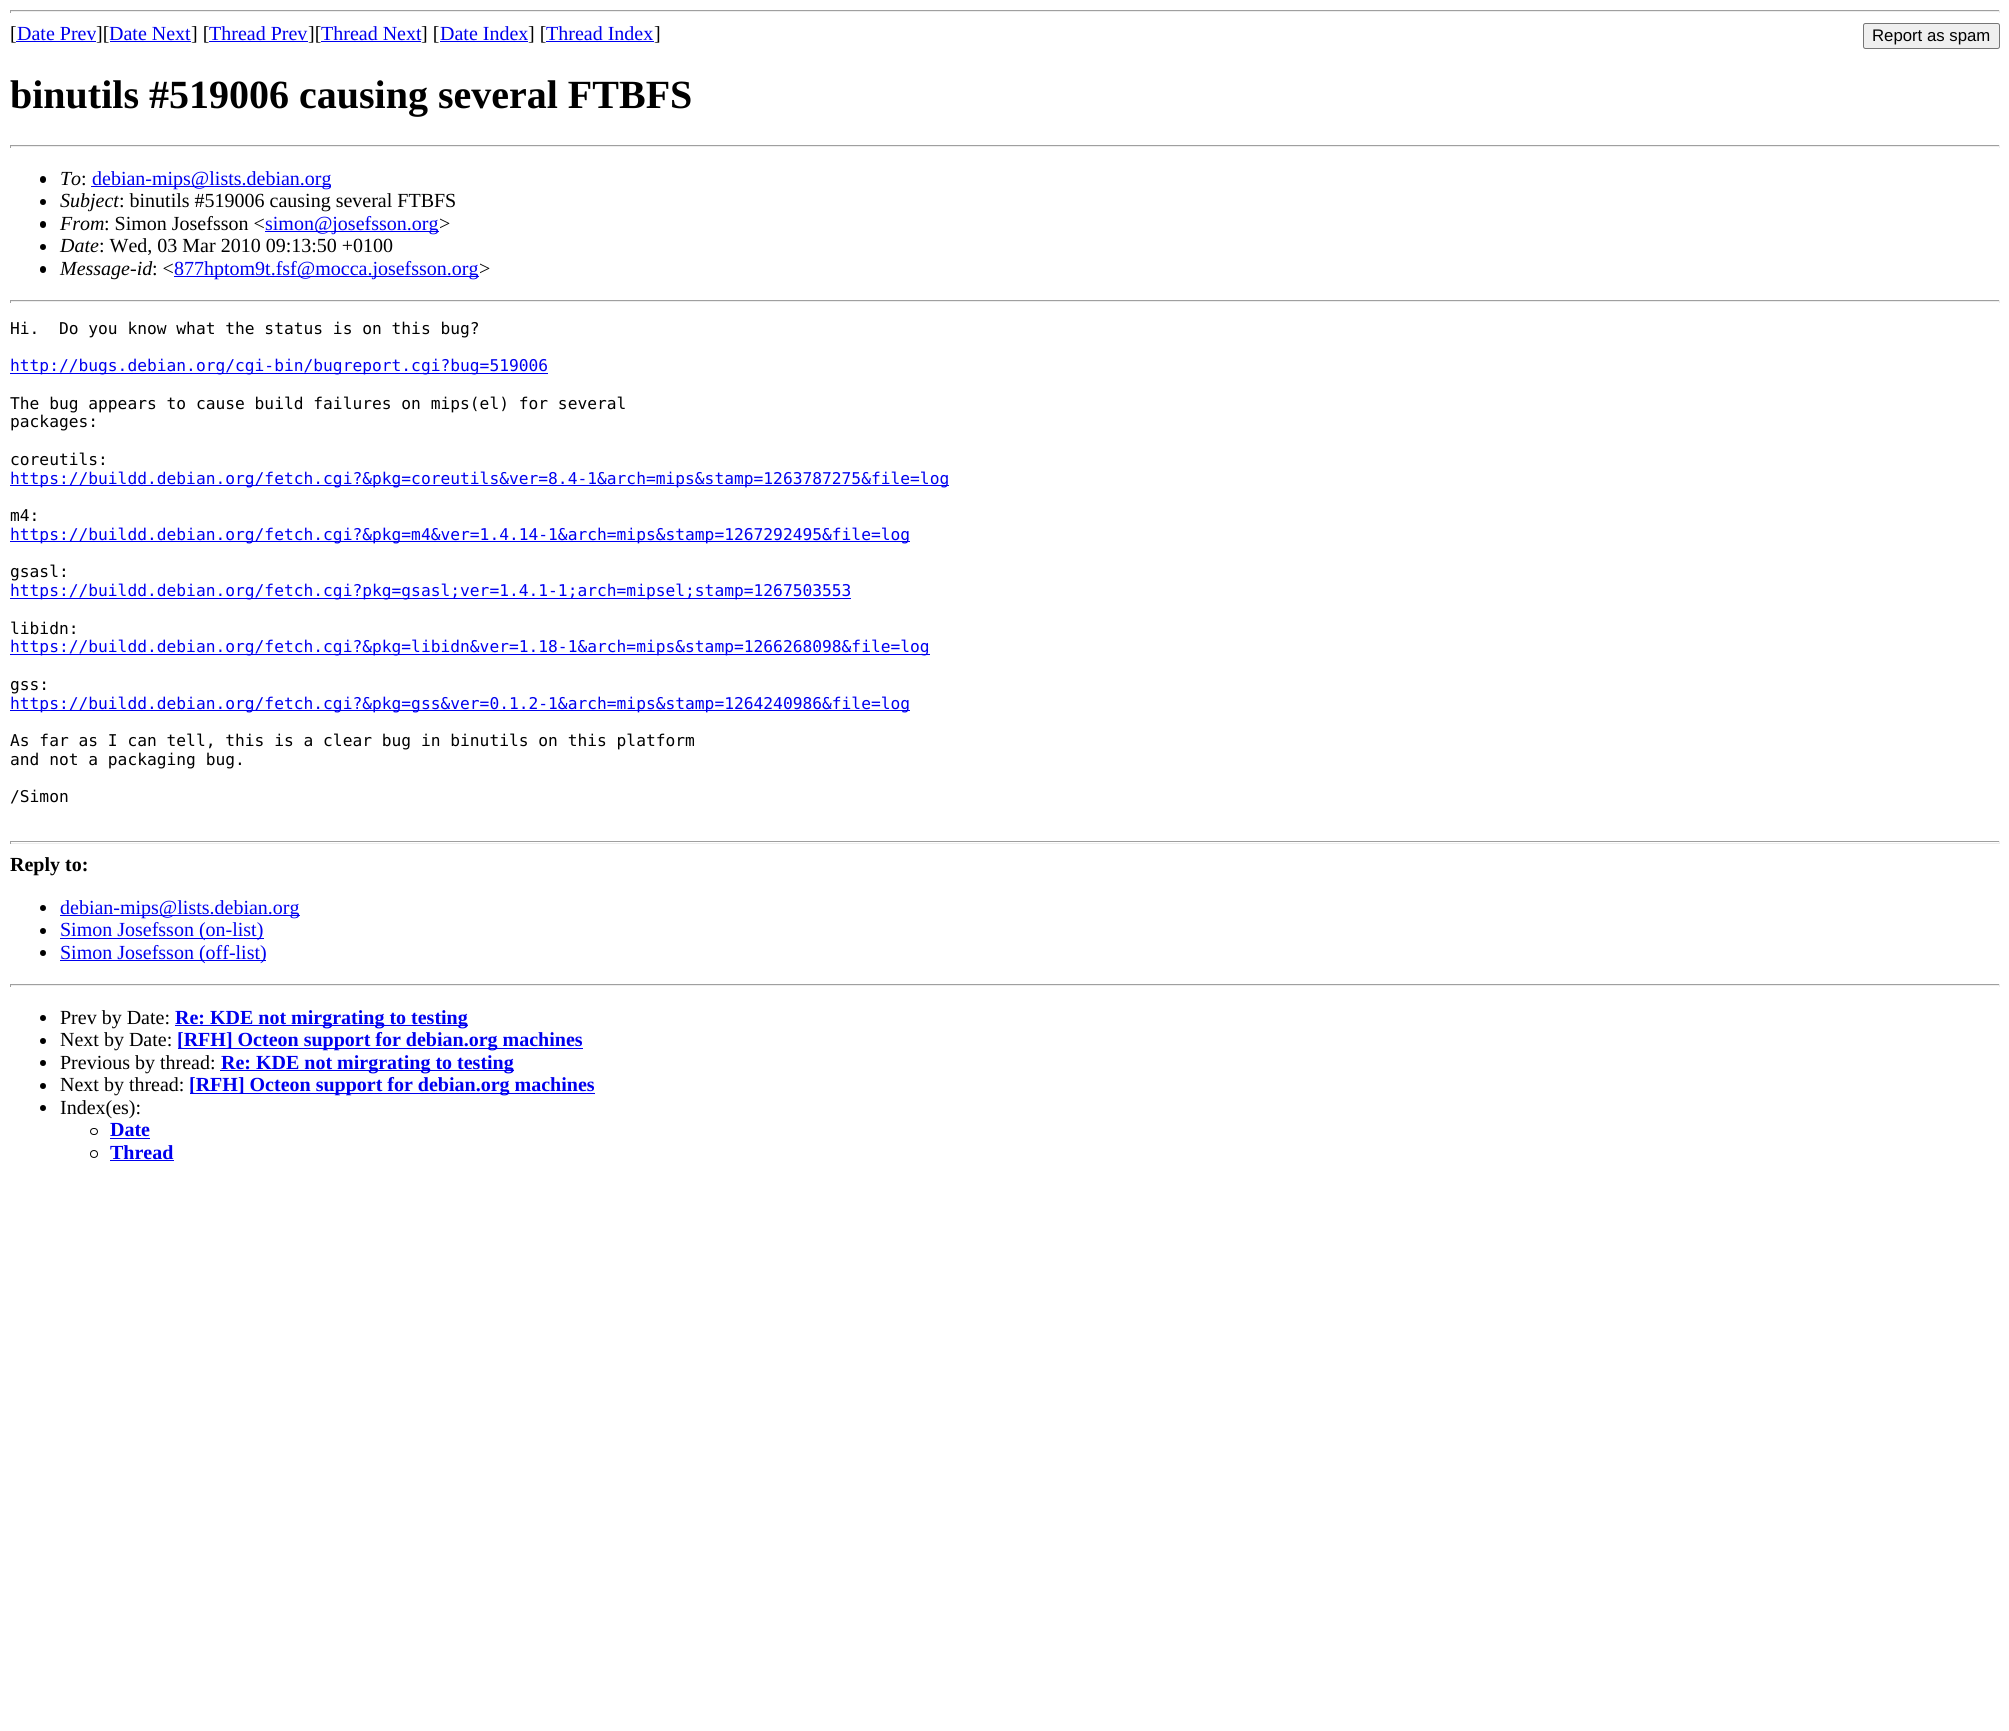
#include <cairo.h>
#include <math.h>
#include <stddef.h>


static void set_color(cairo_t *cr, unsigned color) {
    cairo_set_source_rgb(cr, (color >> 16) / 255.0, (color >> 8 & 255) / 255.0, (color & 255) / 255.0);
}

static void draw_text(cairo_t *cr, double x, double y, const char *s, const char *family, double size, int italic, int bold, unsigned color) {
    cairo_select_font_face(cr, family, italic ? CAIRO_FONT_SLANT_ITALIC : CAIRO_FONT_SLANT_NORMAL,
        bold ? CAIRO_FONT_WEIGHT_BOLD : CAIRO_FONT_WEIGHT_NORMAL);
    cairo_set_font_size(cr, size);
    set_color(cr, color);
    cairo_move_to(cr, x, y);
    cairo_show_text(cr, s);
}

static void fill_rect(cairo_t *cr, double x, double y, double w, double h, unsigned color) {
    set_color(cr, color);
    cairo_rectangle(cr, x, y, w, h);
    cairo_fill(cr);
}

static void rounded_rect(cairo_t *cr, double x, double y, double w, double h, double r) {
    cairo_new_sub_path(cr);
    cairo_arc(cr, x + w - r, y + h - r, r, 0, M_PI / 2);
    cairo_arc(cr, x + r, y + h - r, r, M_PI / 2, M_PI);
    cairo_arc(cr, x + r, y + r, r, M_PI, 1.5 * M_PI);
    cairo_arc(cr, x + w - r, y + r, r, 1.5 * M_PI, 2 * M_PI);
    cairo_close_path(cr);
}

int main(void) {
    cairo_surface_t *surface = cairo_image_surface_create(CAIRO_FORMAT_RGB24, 2009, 1731);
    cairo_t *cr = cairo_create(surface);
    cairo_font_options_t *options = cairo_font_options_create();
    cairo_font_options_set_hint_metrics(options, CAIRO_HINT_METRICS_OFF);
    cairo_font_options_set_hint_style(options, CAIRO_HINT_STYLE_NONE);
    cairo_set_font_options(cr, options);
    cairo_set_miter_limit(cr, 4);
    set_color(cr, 0xFFFFFF);
    cairo_paint(cr);
    fill_rect(cr, 10, 10, 1990, 1, 0x9F9F9F);
    fill_rect(cr, 1999, 10, 1, 3, 0xEEEEEE);
    fill_rect(cr, 10, 11, 1990, 1, 0xEEEEEE);
    fill_rect(cr, 10, 10, 1, 3, 0x9F9F9F);
    draw_text(cr, 10, 40, "[", "Liberation Serif", 20, 0, 0, 0x000000);
    draw_text(cr, 17, 40, "Date Prev", "Liberation Serif", 20, 0, 0, 0x0000EE);
    fill_rect(cr, 16, 41, 80, 1, 0x0000EE);
    draw_text(cr, 96, 40, "][", "Liberation Serif", 20, 0, 0, 0x000000);
    draw_text(cr, 109, 40, "Date Next", "Liberation Serif", 20, 0, 0, 0x0000EE);
    fill_rect(cr, 110, 41, 81, 1, 0x0000EE);
    draw_text(cr, 191, 40, "] [", "Liberation Serif", 20, 0, 0, 0x000000);
    draw_text(cr, 209, 40, "Thread Prev", "Liberation Serif", 20, 0, 0, 0x0000EE);
    fill_rect(cr, 209, 41, 99, 1, 0x0000EE);
    draw_text(cr, 308, 40, "][", "Liberation Serif", 20, 0, 0, 0x000000);
    draw_text(cr, 321, 40, "Thread Next", "Liberation Serif", 20, 0, 0, 0x0000EE);
    fill_rect(cr, 321, 41, 100, 1, 0x0000EE);
    draw_text(cr, 421, 40, "] [", "Liberation Serif", 20, 0, 0, 0x000000);
    draw_text(cr, 440, 40, "Date Index", "Liberation Serif", 20, 0, 0, 0x0000EE);
    fill_rect(cr, 440, 41, 88, 1, 0x0000EE);
    draw_text(cr, 528, 40, "] [", "Liberation Serif", 20, 0, 0, 0x000000);
    draw_text(cr, 546, 40, "Thread Index", "Liberation Serif", 20, 0, 0, 0x0000EE);
    fill_rect(cr, 546, 41, 108, 1, 0x0000EE);
    draw_text(cr, 654, 40, "]", "Liberation Serif", 20, 0, 0, 0x000000);
    set_color(cr, 0xEFEFEF);
    rounded_rect(cr, 1863.5, 23.5, 136, 25, 2);
    cairo_fill_preserve(cr);
    set_color(cr, 0x767676);
    cairo_set_line_width(cr, 1);
    cairo_stroke(cr);
    draw_text(cr, 1872, 41, "Report as spam", "Liberation Sans", 16.75, 0, 0, 0x000000);
    draw_text(cr, 10, 108, "binutils #519006 causing several FTBFS", "Liberation Serif", 40, 0, 1, 0x000000);
    fill_rect(cr, 10, 145, 1990, 1, 0x9F9F9F);
    fill_rect(cr, 1999, 145, 1, 3, 0xEEEEEE);
    fill_rect(cr, 10, 146, 1990, 1, 0xEEEEEE);
    fill_rect(cr, 10, 145, 1, 3, 0x9F9F9F);
    set_color(cr, 0x000000);
    rounded_rect(cr, 40, 176, 6, 7, 3);
    cairo_fill(cr);
    draw_text(cr, 60, 185, "To", "Liberation Serif", 20, 1, 0, 0x000000);
    draw_text(cr, 81, 185, ":", "Liberation Serif", 20, 0, 0, 0x000000);
    fill_rect(cr, 91, 186, 240, 1, 0x0000EE);
    draw_text(cr, 92, 185, "debian-mips@lists.debian.org", "Liberation Serif", 20, 0, 0, 0x0000EE);
    set_color(cr, 0x000000);
    cairo_new_path(cr);
    cairo_arc(cr, 43, 202, 3, 0, 2 * M_PI);
    cairo_fill(cr);
    draw_text(cr, 60, 207, "Subject", "Liberation Serif", 20, 1, 0, 0x000000);
    draw_text(cr, 119, 207, ": binutils #519006 causing several FTBFS", "Liberation Serif", 20, 0, 0, 0x000000);
    rounded_rect(cr, 40, 221, 6, 7, 3);
    cairo_fill(cr);
    draw_text(cr, 60, 230, "From", "Liberation Serif", 20, 1, 0, 0x000000);
    draw_text(cr, 104, 230, ": Simon Josefsson <", "Liberation Serif", 20, 0, 0, 0x000000);
    fill_rect(cr, 265, 231, 174, 1, 0x0000EE);
    draw_text(cr, 265, 230, "simon@josefsson.org", "Liberation Serif", 20, 0, 0, 0x0000EE);
    draw_text(cr, 439, 230, ">", "Liberation Serif", 20, 0, 0, 0x000000);
    cairo_new_path(cr);
    cairo_arc(cr, 43, 247, 3, 0, 2 * M_PI);
    cairo_fill(cr);
    draw_text(cr, 60, 252, "Date", "Liberation Serif", 20, 1, 0, 0x000000);
    draw_text(cr, 99, 252, ": Wed, 03 Mar 2010 09:13:50 +0100", "Liberation Serif", 20, 0, 0, 0x000000);
    rounded_rect(cr, 40, 266, 6, 7, 3);
    cairo_fill(cr);
    draw_text(cr, 60, 275, "Message-id", "Liberation Serif", 20, 1, 0, 0x000000);
    draw_text(cr, 152, 275, ": <", "Liberation Serif", 20, 0, 0, 0x000000);
    fill_rect(cr, 174, 276, 305, 1, 0x0000EE);
    draw_text(cr, 174, 275, "877hptom9t.fsf@mocca.josefsson.org", "Liberation Serif", 20, 0, 0, 0x0000EE);
    draw_text(cr, 479, 275, ">", "Liberation Serif", 20, 0, 0, 0x000000);
    fill_rect(cr, 10, 300, 1990, 1, 0x9F9F9F);
    fill_rect(cr, 1999, 300, 1, 3, 0xEEEEEE);
    fill_rect(cr, 10, 301, 1990, 1, 0xEEEEEE);
    fill_rect(cr, 10, 300, 1, 3, 0x9F9F9F);
    draw_text(cr, 10, 334, "Hi.  Do you know what the status is on this bug?", "DejaVu Sans Mono", 16.25, 0, 0, 0x000000);
    fill_rect(cr, 10, 373, 538, 1, 0x0000EE);
    draw_text(cr, 10, 371, "http://bugs.debian.org/cgi-bin/bugreport.cgi?bug=519006", "DejaVu Sans Mono", 16.25, 0, 0, 0x0000EE);
    draw_text(cr, 10, 409, "The bug appears to cause build failures on mips(el) for several", "DejaVu Sans Mono", 16.25, 0, 0, 0x000000);
    draw_text(cr, 10, 427, "packages:", "DejaVu Sans Mono", 16.25, 0, 0, 0x000000);
    draw_text(cr, 10, 465, "coreutils:", "DejaVu Sans Mono", 16.25, 0, 0, 0x000000);
    fill_rect(cr, 10, 485, 939, 1, 0x0000EE);
    draw_text(cr, 10, 484, "https://buildd.debian.org/fetch.cgi?&pkg=coreutils&ver=8.4-1&arch=mips&stamp=1263787275&file=log", "DejaVu Sans Mono", 16.25, 0, 0, 0x0000EE);
    draw_text(cr, 10, 521, "m4:", "DejaVu Sans Mono", 16.25, 0, 0, 0x000000);
    fill_rect(cr, 10, 541, 900, 1, 0x0000EE);
    draw_text(cr, 10, 540, "https://buildd.debian.org/fetch.cgi?&pkg=m4&ver=1.4.14-1&arch=mips&stamp=1267292495&file=log", "DejaVu Sans Mono", 16.25, 0, 0, 0x0000EE);
    draw_text(cr, 10, 577, "gsasl:", "DejaVu Sans Mono", 16.25, 0, 0, 0x000000);
    fill_rect(cr, 10, 598, 841, 1, 0x0000EE);
    draw_text(cr, 10, 596, "https://buildd.debian.org/fetch.cgi?pkg=gsasl;ver=1.4.1-1;arch=mipsel;stamp=1267503553", "DejaVu Sans Mono", 16.25, 0, 0, 0x0000EE);
    draw_text(cr, 10, 634, "libidn:", "DejaVu Sans Mono", 16.25, 0, 0, 0x000000);
    fill_rect(cr, 10, 654, 920, 1, 0x0000EE);
    draw_text(cr, 10, 652, "https://buildd.debian.org/fetch.cgi?&pkg=libidn&ver=1.18-1&arch=mips&stamp=1266268098&file=log", "DejaVu Sans Mono", 16.25, 0, 0, 0x0000EE);
    draw_text(cr, 10, 690, "gss:", "DejaVu Sans Mono", 16.25, 0, 0, 0x000000);
    fill_rect(cr, 10, 710, 900, 1, 0x0000EE);
    draw_text(cr, 10, 709, "https://buildd.debian.org/fetch.cgi?&pkg=gss&ver=0.1.2-1&arch=mips&stamp=1264240986&file=log", "DejaVu Sans Mono", 16.25, 0, 0, 0x0000EE);
    draw_text(cr, 10, 746, "As far as I can tell, this is a clear bug in binutils on this platform", "DejaVu Sans Mono", 16.25, 0, 0, 0x000000);
    draw_text(cr, 10, 765, "and not a packaging bug.", "DejaVu Sans Mono", 16.25, 0, 0, 0x000000);
    draw_text(cr, 10, 802, "/Simon", "DejaVu Sans Mono", 16.25, 0, 0, 0x000000);
    fill_rect(cr, 10, 841, 1990, 1, 0x9F9F9F);
    fill_rect(cr, 1999, 841, 1, 3, 0xEEEEEE);
    fill_rect(cr, 10, 843, 1990, 1, 0xEEEEEE);
    fill_rect(cr, 10, 841, 1, 3, 0x9F9F9F);
    draw_text(cr, 10, 871, "Reply to:", "Liberation Serif", 20, 0, 1, 0x000000);
    cairo_new_path(cr);
    cairo_arc(cr, 43, 908, 3, 0, 2 * M_PI);
    cairo_fill(cr);
    fill_rect(cr, 60, 915, 240, 1, 0x0000EE);
    draw_text(cr, 60, 914, "debian-mips@lists.debian.org", "Liberation Serif", 20, 0, 0, 0x0000EE);
    set_color(cr, 0x000000);
    cairo_new_path(cr);
    cairo_arc(cr, 43, 931, 3, 0, 2 * M_PI);
    cairo_fill(cr);
    fill_rect(cr, 60, 938, 204, 1, 0x0000EE);
    draw_text(cr, 60, 936, "Simon Josefsson (on-list)", "Liberation Serif", 20, 0, 0, 0x0000EE);
    set_color(cr, 0x000000);
    cairo_new_path(cr);
    cairo_arc(cr, 43, 953, 3, 0, 2 * M_PI);
    cairo_fill(cr);
    fill_rect(cr, 60, 960, 206, 1, 0x0000EE);
    draw_text(cr, 60, 959, "Simon Josefsson (off-list)", "Liberation Serif", 20, 0, 0, 0x0000EE);
    fill_rect(cr, 10, 984, 1990, 1, 0x9F9F9F);
    fill_rect(cr, 1999, 984, 1, 3, 0xEEEEEE);
    fill_rect(cr, 10, 985, 1990, 1, 0xEEEEEE);
    fill_rect(cr, 10, 984, 1, 3, 0x9F9F9F);
    set_color(cr, 0x000000);
    cairo_new_path(cr);
    cairo_arc(cr, 43, 1018, 3, 0, 2 * M_PI);
    cairo_fill(cr);
    draw_text(cr, 60, 1024, "Prev by Date:", "Liberation Serif", 20, 0, 0, 0x000000);
    fill_rect(cr, 175, 1025, 293, 1, 0x0000EE);
    draw_text(cr, 175, 1024, "Re: KDE not mirgrating to testing", "Liberation Serif", 20, 0, 1, 0x0000EE);
    set_color(cr, 0x000000);
    cairo_new_path(cr);
    cairo_arc(cr, 43, 1041, 3, 0, 2 * M_PI);
    cairo_fill(cr);
    draw_text(cr, 60, 1046, "Next by Date:", "Liberation Serif", 20, 0, 0, 0x000000);
    fill_rect(cr, 178, 1048, 405, 1, 0x0000EE);
    draw_text(cr, 177, 1046, "[RFH] Octeon support for debian.org machines", "Liberation Serif", 20, 0, 1, 0x0000EE);
    set_color(cr, 0x000000);
    cairo_new_path(cr);
    cairo_arc(cr, 43, 1063, 3, 0, 2 * M_PI);
    cairo_fill(cr);
    draw_text(cr, 60, 1069, "Previous by thread:", "Liberation Serif", 20, 0, 0, 0x000000);
    fill_rect(cr, 220, 1070, 294, 1, 0x0000EE);
    draw_text(cr, 221, 1069, "Re: KDE not mirgrating to testing", "Liberation Serif", 20, 0, 1, 0x0000EE);
    set_color(cr, 0x000000);
    cairo_new_path(cr);
    cairo_arc(cr, 43, 1086, 3, 0, 2 * M_PI);
    cairo_fill(cr);
    draw_text(cr, 60, 1091, "Next by thread:", "Liberation Serif", 20, 0, 0, 0x000000);
    fill_rect(cr, 190, 1093, 405, 1, 0x0000EE);
    draw_text(cr, 189, 1091, "[RFH] Octeon support for debian.org machines", "Liberation Serif", 20, 0, 1, 0x0000EE);
    set_color(cr, 0x000000);
    cairo_new_path(cr);
    cairo_arc(cr, 43, 1108, 3, 0, 2 * M_PI);
    cairo_fill(cr);
    draw_text(cr, 60, 1114, "Index(es):", "Liberation Serif", 20, 0, 0, 0x000000);
    rounded_rect(cr, 90.5, 1128.5, 7, 6, 3);
    cairo_stroke(cr);
    draw_text(cr, 110, 1136, "Date", "Liberation Serif", 20, 0, 1, 0x0000EE);
    fill_rect(cr, 110, 1138, 40, 1, 0x0000EE);
    cairo_new_path(cr);
    cairo_arc(cr, 94, 1154, 3.5, 0, 2 * M_PI);
    set_color(cr, 0x000000);
    cairo_stroke(cr);
    draw_text(cr, 110, 1159, "Thread", "Liberation Serif", 20, 0, 1, 0x0000EE);
    fill_rect(cr, 110, 1160, 64, 1, 0x0000EE);
    cairo_surface_write_to_png(surface, "output.png");
    cairo_font_options_destroy(options);
    cairo_destroy(cr);
    cairo_surface_destroy(surface);
    return 0;
}
